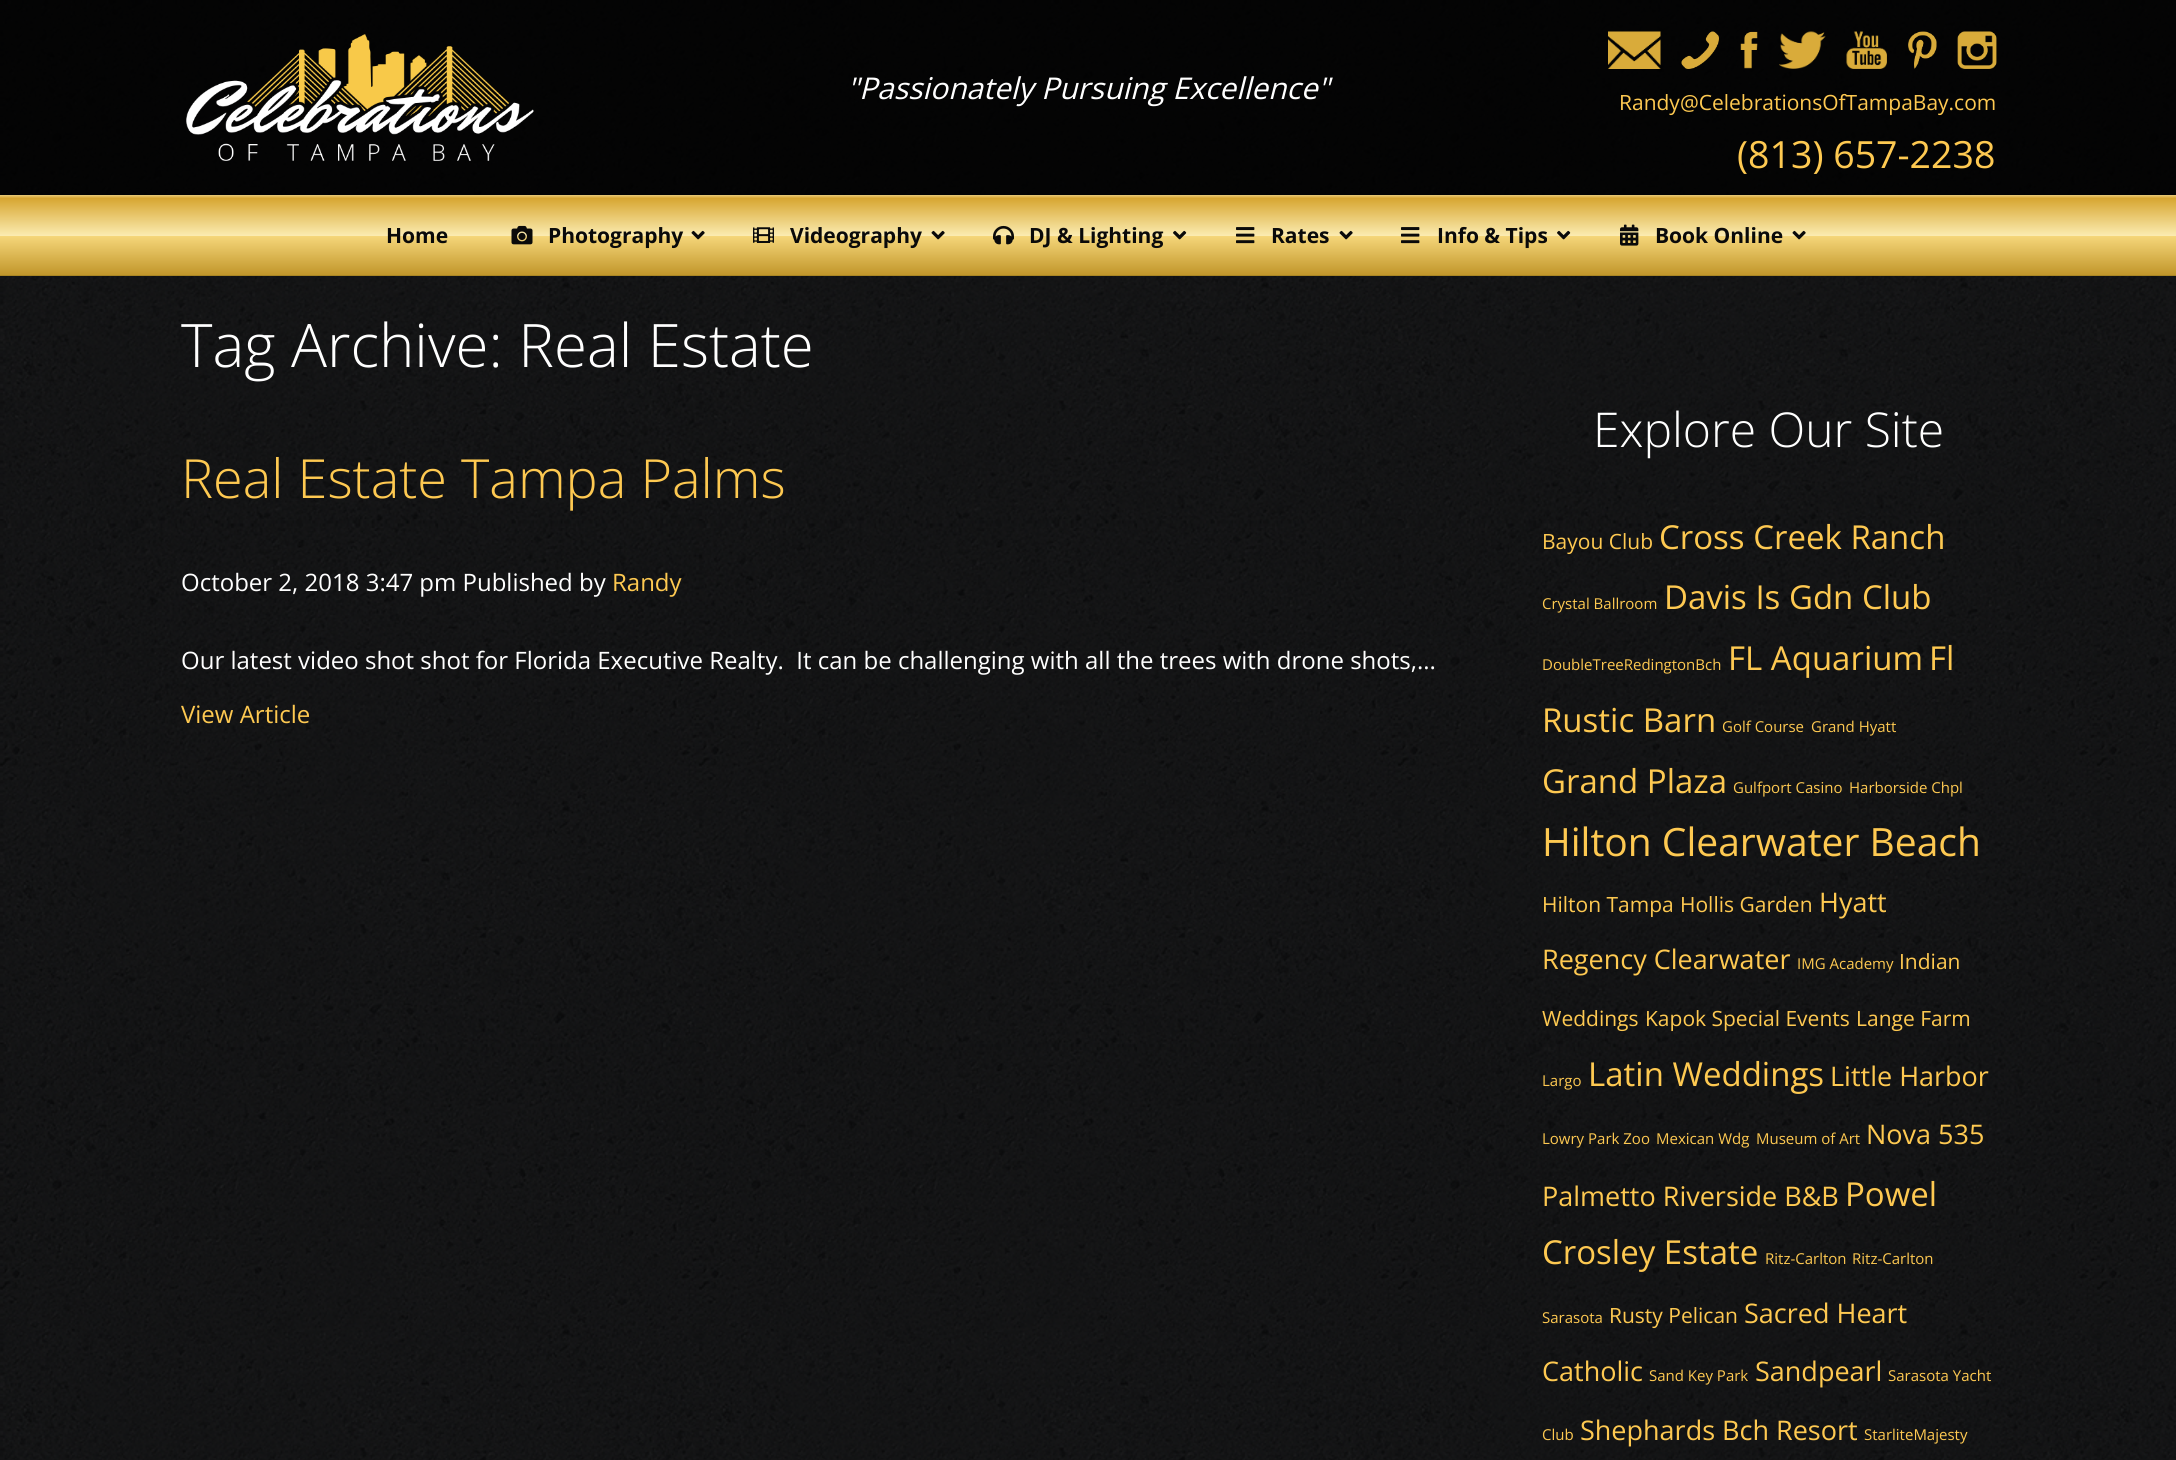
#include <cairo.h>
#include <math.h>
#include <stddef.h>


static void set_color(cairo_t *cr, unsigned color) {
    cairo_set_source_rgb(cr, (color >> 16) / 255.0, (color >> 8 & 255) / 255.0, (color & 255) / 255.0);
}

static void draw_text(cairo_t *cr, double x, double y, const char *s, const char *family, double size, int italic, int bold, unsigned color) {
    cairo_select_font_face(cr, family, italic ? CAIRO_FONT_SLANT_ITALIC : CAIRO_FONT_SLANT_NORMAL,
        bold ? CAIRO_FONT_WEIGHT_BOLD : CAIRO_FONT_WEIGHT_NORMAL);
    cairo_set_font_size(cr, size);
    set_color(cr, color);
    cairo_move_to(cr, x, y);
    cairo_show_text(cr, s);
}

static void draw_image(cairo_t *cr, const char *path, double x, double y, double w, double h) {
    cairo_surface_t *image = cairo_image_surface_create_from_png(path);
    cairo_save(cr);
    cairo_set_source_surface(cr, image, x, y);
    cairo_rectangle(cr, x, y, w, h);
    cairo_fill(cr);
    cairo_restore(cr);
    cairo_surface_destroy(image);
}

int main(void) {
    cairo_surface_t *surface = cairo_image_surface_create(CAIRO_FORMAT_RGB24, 2176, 1460);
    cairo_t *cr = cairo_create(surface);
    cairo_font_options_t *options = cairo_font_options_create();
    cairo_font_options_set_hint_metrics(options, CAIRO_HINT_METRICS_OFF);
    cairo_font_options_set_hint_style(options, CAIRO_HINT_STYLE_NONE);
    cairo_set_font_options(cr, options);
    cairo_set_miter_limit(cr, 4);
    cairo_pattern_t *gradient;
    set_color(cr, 0xFFFFFF);
    cairo_paint(cr);
    draw_image(cr, "assets/img1.png", 0, 0, 2176, 1460);
    cairo_set_source_rgba(cr, 0, 0, 0, 0.8);
    cairo_rectangle(cr, 0, 0, 2176, 195);
    cairo_fill(cr);
    draw_image(cr, "assets/img2.png", 186, 34, 348, 127);
    draw_text(cr, 847, 99, "\"Passionately Pursuing Excellence\"", "Open Sans", 30, 1, 0, 0xFFFFFF);
    draw_image(cr, "assets/img3.png", 1608, 31, 53, 38);
    draw_image(cr, "assets/img4.png", 1681, 31, 38, 38);
    draw_image(cr, "assets/img5.png", 1740, 31, 18, 38);
    draw_image(cr, "assets/img6.png", 1779, 31, 47, 38);
    draw_image(cr, "assets/img7.png", 1846, 31, 41, 38);
    draw_image(cr, "assets/img8.png", 1908, 31, 29, 38);
    draw_image(cr, "assets/img9.png", 1957, 31, 40, 38);
    draw_text(cr, 1619, 110, "Randy@CelebrationsOfTampaBay.com", "Open Sans", 21, 0, 0, 0xFEC951);
    draw_text(cr, 1737, 168, "(813) 657-2238", "Open Sans", 37.5, 0, 0, 0xFEC951);
    gradient = cairo_pattern_create_linear(1088, 195, 1088, 276);
    cairo_pattern_add_color_stop_rgba(gradient, 0, 0.914, 0.796, 0.486, 1);
    cairo_pattern_add_color_stop_rgba(gradient, 0.04, 0.843, 0.651, 0.192, 1);
    cairo_pattern_add_color_stop_rgba(gradient, 0.5, 0.984, 0.922, 0.69, 1);
    cairo_pattern_add_color_stop_rgba(gradient, 0.51, 0.961, 0.839, 0.478, 1);
    cairo_pattern_add_color_stop_rgba(gradient, 0.99, 0.757, 0.588, 0.165, 1);
    cairo_pattern_add_color_stop_rgba(gradient, 1, 0.51, 0.424, 0.118, 1);
    cairo_set_source(cr, gradient);
    cairo_pattern_destroy(gradient);
    cairo_rectangle(cr, 0, 195, 2176, 81);
    cairo_fill(cr);
    draw_text(cr, 386, 243, "Home", "Open Sans", 21, 0, 1, 0x0A0A0A);
    draw_image(cr, "assets/img10.png", 511, 225, 22, 20);
    draw_text(cr, 548, 243, "Photography", "Open Sans", 21, 0, 1, 0x0A0A0A);
    draw_image(cr, "assets/img11.png", 691, 230, 14, 10);
    draw_image(cr, "assets/img12.png", 753, 227, 21, 16);
    draw_text(cr, 790, 243, "Videography", "Open Sans", 21, 0, 1, 0x0A0A0A);
    draw_image(cr, "assets/img11.png", 931, 230, 14, 10);
    draw_image(cr, "assets/img13.png", 993, 225, 21, 20);
    draw_text(cr, 1029, 243, "DJ & Lighting", "Open Sans", 21, 0, 1, 0x0A0A0A);
    draw_image(cr, "assets/img14.png", 1173, 230, 14, 10);
    draw_image(cr, "assets/img15.png", 1236, 227, 19, 17);
    draw_text(cr, 1271, 243, "Rates", "Open Sans", 21, 0, 1, 0x0A0A0A);
    draw_image(cr, "assets/img11.png", 1339, 230, 14, 10);
    draw_image(cr, "assets/img15.png", 1401, 227, 19, 17);
    draw_text(cr, 1437, 243, "Info & Tips", "Open Sans", 21, 0, 1, 0x0A0A0A);
    draw_image(cr, "assets/img14.png", 1557, 230, 14, 10);
    draw_image(cr, "assets/img16.png", 1620, 224, 19, 22);
    draw_text(cr, 1655, 243, "Book Online", "Open Sans", 21, 0, 1, 0x0A0A0A);
    draw_image(cr, "assets/img11.png", 1792, 230, 14, 10);
    draw_text(cr, 181, 367, "Tag Archive: Real Estate", "Open Sans Light", 60, 0, 0, 0xFFFFFF);
    draw_text(cr, 181, 498, "Real Estate Tampa Palms", "Open Sans Light", 54, 0, 0, 0xFEC951);
    draw_text(cr, 181, 591, "October 2, 2018 3:47 pm Published by", "Open Sans", 24, 0, 0, 0xFFFFFF);
    draw_text(cr, 612, 591, "Randy", "Open Sans", 24, 0, 0, 0xFEC951);
    draw_text(cr, 181, 669, "Our latest video shot shot for Florida Executive Realty.  It can be challenging with all the trees with drone shots,...", "Open Sans", 24, 0, 0, 0xFFFFFF);
    draw_text(cr, 181, 723, "View Article", "Open Sans", 24, 0, 0, 0xFEC951);
    draw_text(cr, 1593, 447, "Explore Our Site", "Open Sans Light", 48, 0, 0, 0xFFFFFF);
    draw_text(cr, 1542, 549, "Bayou Club", "Open Sans", 21, 0, 0, 0xFEC951);
    draw_text(cr, 1659, 549, "Cross Creek Ranch", "Open Sans", 33, 0, 0, 0xFEC951);
    draw_text(cr, 1542, 609, "Crystal Ballroom", "Open Sans", 15, 0, 0, 0xFEC951);
    draw_text(cr, 1664, 609, "Davis Is Gdn Club", "Open Sans", 33, 0, 0, 0xFEC951);
    draw_text(cr, 1542, 670, "DoubleTreeRedingtonBch", "Open Sans", 15, 0, 0, 0xFEC951);
    draw_text(cr, 1728, 670, "FL Aquarium", "Open Sans", 33, 0, 0, 0xFEC951);
    draw_text(cr, 1929, 670, "Fl", "Open Sans", 33, 0, 0, 0xFEC951);
    draw_text(cr, 1542, 732, "Rustic Barn", "Open Sans", 33, 0, 0, 0xFEC951);
    draw_text(cr, 1722, 732, "Golf Course", "Open Sans", 15, 0, 0, 0xFEC951);
    draw_text(cr, 1811, 732, "Grand Hyatt", "Open Sans", 15, 0, 0, 0xFEC951);
    draw_text(cr, 1542, 793, "Grand Plaza", "Open Sans", 33, 0, 0, 0xFEC951);
    draw_text(cr, 1733, 793, "Gulfport Casino", "Open Sans", 15, 0, 0, 0xFEC951);
    draw_text(cr, 1849, 793, "Harborside Chpl", "Open Sans", 15, 0, 0, 0xFEC951);
    draw_text(cr, 1542, 856, "Hilton Clearwater Beach", "Open Sans", 39, 0, 0, 0xFEC951);
    draw_text(cr, 1542, 912, "Hilton Tampa", "Open Sans", 21, 0, 0, 0xFEC951);
    draw_text(cr, 1680, 912, "Hollis Garden", "Open Sans", 21, 0, 0, 0xFEC951);
    draw_text(cr, 1819, 912, "Hyatt", "Open Sans", 27, 0, 0, 0xFEC951);
    draw_text(cr, 1542, 969, "Regency Clearwater", "Open Sans", 27, 0, 0, 0xFEC951);
    draw_text(cr, 1797, 969, "IMG Academy", "Open Sans", 15, 0, 0, 0xFEC951);
    draw_text(cr, 1899, 969, "Indian", "Open Sans", 21, 0, 0, 0xFEC951);
    draw_text(cr, 1542, 1026, "Weddings", "Open Sans", 21, 0, 0, 0xFEC951);
    draw_text(cr, 1645, 1026, "Kapok Special Events", "Open Sans", 21, 0, 0, 0xFEC951);
    draw_text(cr, 1856, 1026, "Lange Farm", "Open Sans", 21, 0, 0, 0xFEC951);
    draw_text(cr, 1542, 1086, "Largo", "Open Sans", 15, 0, 0, 0xFEC951);
    draw_text(cr, 1588, 1086, "Latin Weddings", "Open Sans", 33, 0, 0, 0xFEC951);
    draw_text(cr, 1830, 1086, "Little Harbor", "Open Sans", 27, 0, 0, 0xFEC951);
    draw_text(cr, 1542, 1144, "Lowry Park Zoo", "Open Sans", 15, 0, 0, 0xFEC951);
    draw_text(cr, 1656, 1144, "Mexican Wdg", "Open Sans", 15, 0, 0, 0xFEC951);
    draw_text(cr, 1756, 1144, "Museum of Art", "Open Sans", 15, 0, 0, 0xFEC951);
    draw_text(cr, 1866, 1144, "Nova 535", "Open Sans", 27, 0, 0, 0xFEC951);
    draw_text(cr, 1542, 1206, "Palmetto Riverside B&B", "Open Sans", 27, 0, 0, 0xFEC951);
    draw_text(cr, 1845, 1206, "Powel", "Open Sans", 33, 0, 0, 0xFEC951);
    draw_text(cr, 1542, 1264, "Crosley Estate", "Open Sans", 33, 0, 0, 0xFEC951);
    draw_text(cr, 1765, 1264, "Ritz-Carlton", "Open Sans", 15, 0, 0, 0xFEC951);
    draw_text(cr, 1852, 1264, "Ritz-Carlton", "Open Sans", 15, 0, 0, 0xFEC951);
    draw_text(cr, 1542, 1323, "Sarasota", "Open Sans", 15, 0, 0, 0xFEC951);
    draw_text(cr, 1609, 1323, "Rusty Pelican", "Open Sans", 21, 0, 0, 0xFEC951);
    draw_text(cr, 1744, 1323, "Sacred Heart", "Open Sans", 27, 0, 0, 0xFEC951);
    draw_text(cr, 1542, 1381, "Catholic", "Open Sans", 27, 0, 0, 0xFEC951);
    draw_text(cr, 1649, 1381, "Sand Key Park", "Open Sans", 15, 0, 0, 0xFEC951);
    draw_text(cr, 1755, 1381, "Sandpearl", "Open Sans", 27, 0, 0, 0xFEC951);
    draw_text(cr, 1888, 1381, "Sarasota Yacht", "Open Sans", 15, 0, 0, 0xFEC951);
    draw_text(cr, 1542, 1440, "Club", "Open Sans", 15, 0, 0, 0xFEC951);
    draw_text(cr, 1580, 1440, "Shephards Bch Resort", "Open Sans", 27, 0, 0, 0xFEC951);
    draw_text(cr, 1864, 1440, "StarliteMajesty", "Open Sans", 15, 0, 0, 0xFEC951);
    cairo_surface_write_to_png(surface, "output.png");
    cairo_font_options_destroy(options);
    cairo_destroy(cr);
    cairo_surface_destroy(surface);
    return 0;
}
